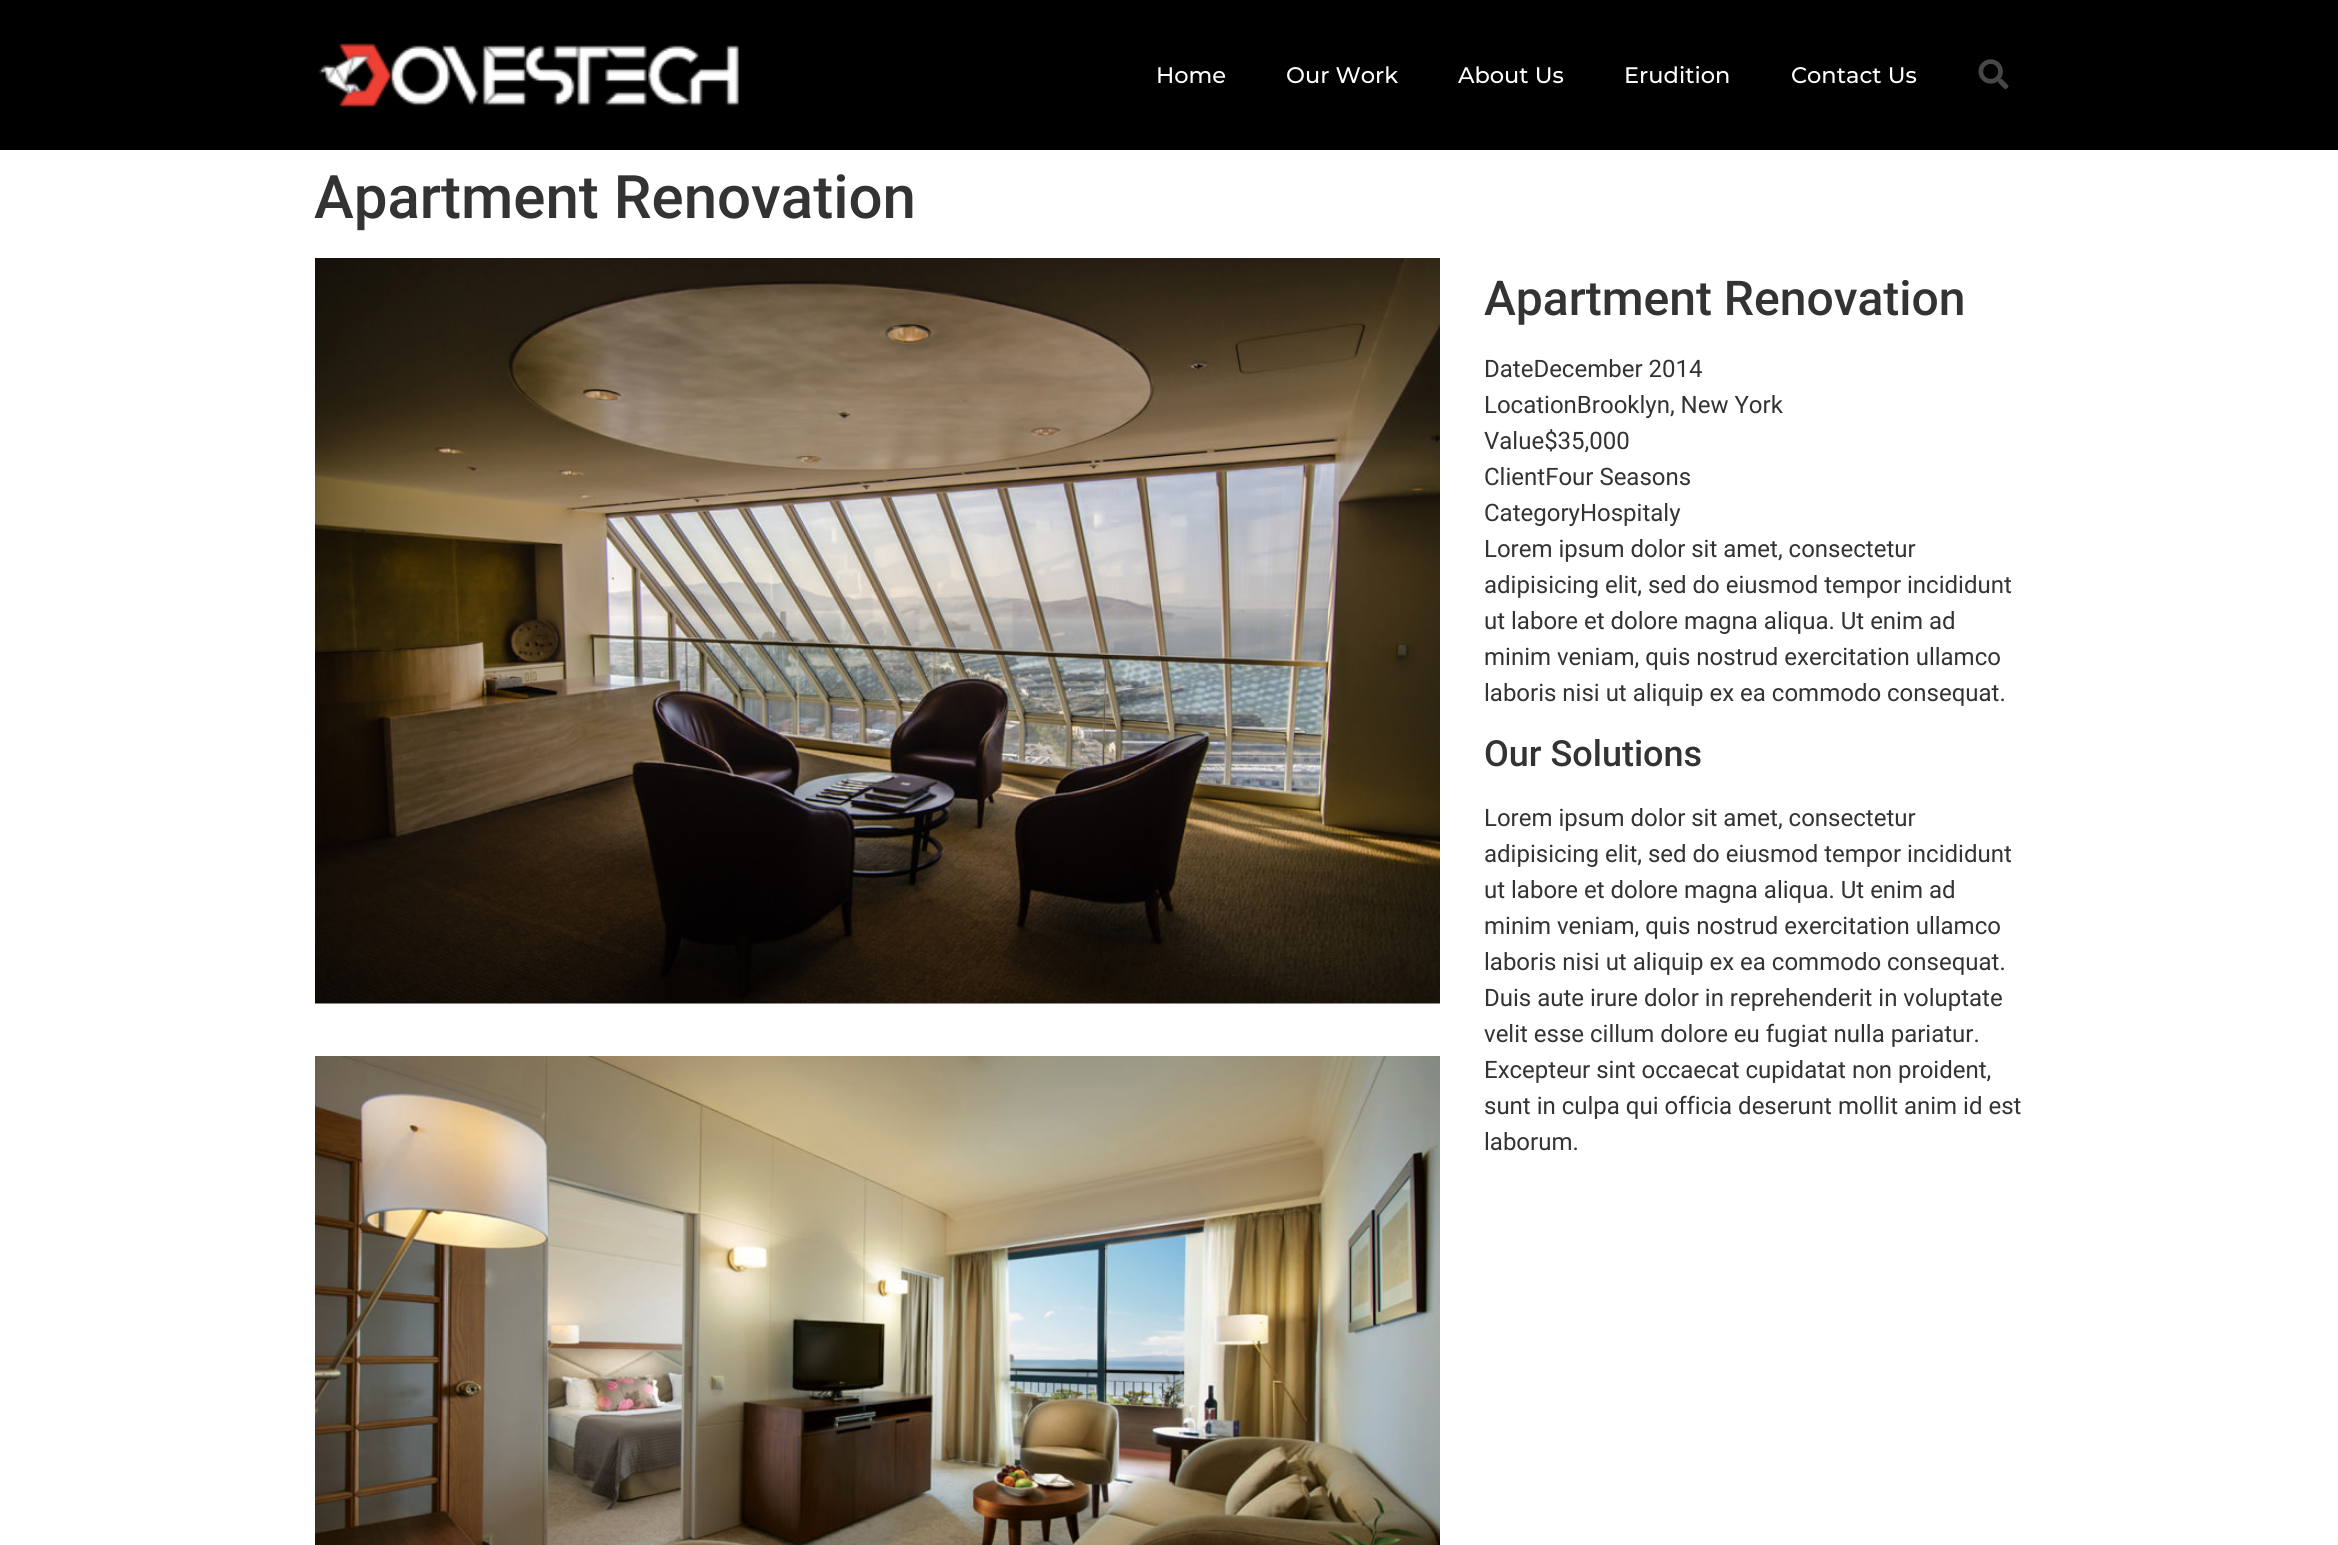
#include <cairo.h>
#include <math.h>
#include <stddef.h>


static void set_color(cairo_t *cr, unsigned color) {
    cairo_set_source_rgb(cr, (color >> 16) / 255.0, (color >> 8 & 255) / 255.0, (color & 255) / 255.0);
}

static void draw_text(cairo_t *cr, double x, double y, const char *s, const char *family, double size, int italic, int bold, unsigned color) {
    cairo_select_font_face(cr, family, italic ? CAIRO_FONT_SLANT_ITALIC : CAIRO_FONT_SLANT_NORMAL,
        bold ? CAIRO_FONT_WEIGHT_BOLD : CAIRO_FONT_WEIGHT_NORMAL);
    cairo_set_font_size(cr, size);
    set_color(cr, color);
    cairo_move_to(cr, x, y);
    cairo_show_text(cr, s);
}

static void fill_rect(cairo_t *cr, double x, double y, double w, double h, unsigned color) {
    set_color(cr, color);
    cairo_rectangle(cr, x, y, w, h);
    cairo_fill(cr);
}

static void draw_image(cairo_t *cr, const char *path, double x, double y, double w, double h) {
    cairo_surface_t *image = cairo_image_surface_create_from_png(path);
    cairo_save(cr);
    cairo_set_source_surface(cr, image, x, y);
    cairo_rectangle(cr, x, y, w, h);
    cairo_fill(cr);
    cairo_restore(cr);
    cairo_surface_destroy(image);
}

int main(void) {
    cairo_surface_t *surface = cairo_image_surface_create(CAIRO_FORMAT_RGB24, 2338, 1545);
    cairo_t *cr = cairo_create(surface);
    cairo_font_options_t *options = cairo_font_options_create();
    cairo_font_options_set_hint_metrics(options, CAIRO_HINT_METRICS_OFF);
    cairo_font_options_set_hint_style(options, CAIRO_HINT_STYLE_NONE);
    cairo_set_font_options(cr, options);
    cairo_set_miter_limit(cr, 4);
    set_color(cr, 0xFFFFFF);
    cairo_paint(cr);
    fill_rect(cr, 0, 0, 2338, 150, 0x000000);
    draw_image(cr, "assets/img1.png", 318, 43, 421, 64);
    draw_text(cr, 1156, 83, "Home", "Montserrat Medium", 22.5, 0, 0, 0xFFFFFF);
    draw_text(cr, 1286, 83, "Our Work", "Montserrat Medium", 22.5, 0, 0, 0xFFFFFF);
    draw_text(cr, 1458, 83, "About Us", "Montserrat Medium", 22.5, 0, 0, 0xFFFFFF);
    draw_text(cr, 1624, 83, "Erudition", "Montserrat Medium", 22.5, 0, 0, 0xFFFFFF);
    draw_text(cr, 1791, 83, "Contact Us", "Montserrat Medium", 22.5, 0, 0, 0xFFFFFF);
    draw_image(cr, "assets/img2.png", 1978, 59, 31, 31);
    draw_text(cr, 314, 218, "Apartment Renovation", "Roboto Medium", 60, 0, 0, 0x333333);
    draw_image(cr, "assets/img3.png", 315, 258, 1125, 746);
    draw_image(cr, "assets/img4.png", 315, 1056, 1125, 489);
    draw_text(cr, 1484, 315, "Apartment Renovation", "Roboto Medium", 48, 0, 0, 0x333333);
    draw_text(cr, 1484, 377, "DateDecember 2014", "Roboto", 24, 0, 0, 0x333333);
    draw_text(cr, 1484, 413, "LocationBrooklyn, New York", "Roboto", 24, 0, 0, 0x333333);
    draw_text(cr, 1484, 449, "Value$35,000", "Roboto", 24, 0, 0, 0x333333);
    draw_text(cr, 1484, 485, "ClientFour Seasons", "Roboto", 24, 0, 0, 0x333333);
    draw_text(cr, 1484, 521, "CategoryHospitaly", "Roboto", 24, 0, 0, 0x333333);
    draw_text(cr, 1484, 557, "Lorem ipsum dolor sit amet, consectetur", "Roboto", 24, 0, 0, 0x333333);
    draw_text(cr, 1484, 593, "adipisicing elit, sed do eiusmod tempor incididunt", "Roboto", 24, 0, 0, 0x333333);
    draw_text(cr, 1484, 629, "ut labore et dolore magna aliqua. Ut enim ad", "Roboto", 24, 0, 0, 0x333333);
    draw_text(cr, 1484, 665, "minim veniam, quis nostrud exercitation ullamco", "Roboto", 24, 0, 0, 0x333333);
    draw_text(cr, 1484, 701, "laboris nisi ut aliquip ex ea commodo consequat.", "Roboto", 24, 0, 0, 0x333333);
    draw_text(cr, 1484, 766, "Our Solutions", "Roboto Medium", 36, 0, 0, 0x333333);
    draw_text(cr, 1484, 826, "Lorem ipsum dolor sit amet, consectetur", "Roboto", 24, 0, 0, 0x333333);
    draw_text(cr, 1484, 862, "adipisicing elit, sed do eiusmod tempor incididunt", "Roboto", 24, 0, 0, 0x333333);
    draw_text(cr, 1484, 898, "ut labore et dolore magna aliqua. Ut enim ad", "Roboto", 24, 0, 0, 0x333333);
    draw_text(cr, 1484, 934, "minim veniam, quis nostrud exercitation ullamco", "Roboto", 24, 0, 0, 0x333333);
    draw_text(cr, 1484, 970, "laboris nisi ut aliquip ex ea commodo consequat.", "Roboto", 24, 0, 0, 0x333333);
    draw_text(cr, 1484, 1006, "Duis aute irure dolor in reprehenderit in voluptate", "Roboto", 24, 0, 0, 0x333333);
    draw_text(cr, 1484, 1042, "velit esse cillum dolore eu fugiat nulla pariatur.", "Roboto", 24, 0, 0, 0x333333);
    draw_text(cr, 1484, 1078, "Excepteur sint occaecat cupidatat non proident,", "Roboto", 24, 0, 0, 0x333333);
    draw_text(cr, 1484, 1114, "sunt in culpa qui officia deserunt mollit anim id est", "Roboto", 24, 0, 0, 0x333333);
    draw_text(cr, 1484, 1150, "laborum.", "Roboto", 24, 0, 0, 0x333333);
    cairo_surface_write_to_png(surface, "output.png");
    cairo_font_options_destroy(options);
    cairo_destroy(cr);
    cairo_surface_destroy(surface);
    return 0;
}
